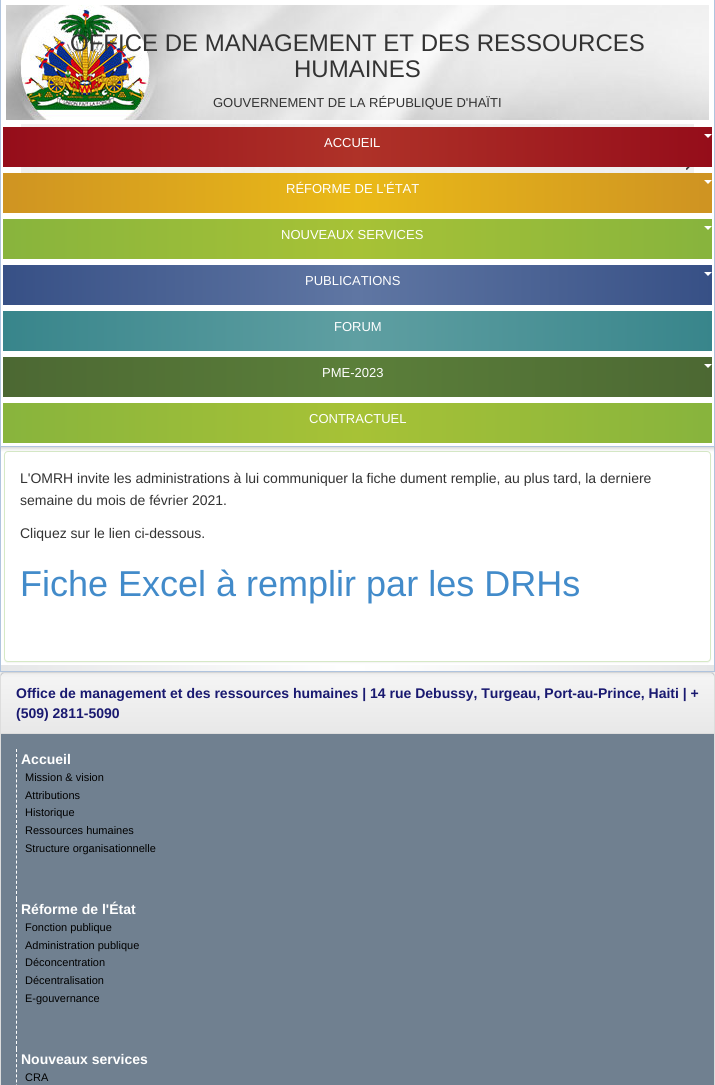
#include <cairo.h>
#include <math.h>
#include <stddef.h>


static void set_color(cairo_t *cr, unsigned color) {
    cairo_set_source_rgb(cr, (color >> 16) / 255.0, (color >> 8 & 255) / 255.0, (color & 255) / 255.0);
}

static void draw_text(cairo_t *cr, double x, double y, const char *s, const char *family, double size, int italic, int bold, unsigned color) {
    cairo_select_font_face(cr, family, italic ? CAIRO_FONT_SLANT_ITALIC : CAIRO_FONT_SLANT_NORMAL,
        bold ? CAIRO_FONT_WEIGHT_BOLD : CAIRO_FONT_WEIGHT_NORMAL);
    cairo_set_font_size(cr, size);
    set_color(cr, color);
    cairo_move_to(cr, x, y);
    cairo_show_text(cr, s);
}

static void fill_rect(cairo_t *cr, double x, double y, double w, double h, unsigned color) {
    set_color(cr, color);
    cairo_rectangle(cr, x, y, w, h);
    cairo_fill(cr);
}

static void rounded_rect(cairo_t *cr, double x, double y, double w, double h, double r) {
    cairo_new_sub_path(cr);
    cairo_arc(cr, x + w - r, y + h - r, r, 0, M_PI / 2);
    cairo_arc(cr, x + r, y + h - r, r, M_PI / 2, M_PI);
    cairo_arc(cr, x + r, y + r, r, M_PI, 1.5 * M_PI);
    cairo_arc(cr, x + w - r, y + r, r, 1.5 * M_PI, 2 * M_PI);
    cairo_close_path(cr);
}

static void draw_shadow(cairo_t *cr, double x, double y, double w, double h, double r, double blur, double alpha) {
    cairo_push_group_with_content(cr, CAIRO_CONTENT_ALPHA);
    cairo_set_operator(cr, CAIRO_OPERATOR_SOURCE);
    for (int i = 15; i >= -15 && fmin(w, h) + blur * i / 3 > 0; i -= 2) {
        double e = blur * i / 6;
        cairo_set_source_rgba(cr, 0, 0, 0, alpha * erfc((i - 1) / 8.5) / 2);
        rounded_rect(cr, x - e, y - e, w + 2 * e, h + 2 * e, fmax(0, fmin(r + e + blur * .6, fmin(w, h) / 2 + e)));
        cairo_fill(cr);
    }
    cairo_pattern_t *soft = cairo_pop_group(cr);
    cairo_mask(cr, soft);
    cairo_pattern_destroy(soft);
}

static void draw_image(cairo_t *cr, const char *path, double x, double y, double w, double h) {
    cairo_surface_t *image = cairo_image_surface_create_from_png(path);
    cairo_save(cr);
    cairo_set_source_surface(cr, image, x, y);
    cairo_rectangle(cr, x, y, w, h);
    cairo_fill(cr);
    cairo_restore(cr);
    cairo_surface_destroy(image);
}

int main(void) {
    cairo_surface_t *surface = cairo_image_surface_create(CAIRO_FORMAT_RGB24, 715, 1085);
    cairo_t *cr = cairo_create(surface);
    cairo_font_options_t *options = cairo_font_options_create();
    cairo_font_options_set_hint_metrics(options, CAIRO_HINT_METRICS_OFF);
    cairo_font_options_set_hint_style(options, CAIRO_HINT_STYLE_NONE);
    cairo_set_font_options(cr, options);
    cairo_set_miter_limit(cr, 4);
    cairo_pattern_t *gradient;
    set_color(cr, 0xFFFFFF);
    cairo_paint(cr);
    set_color(cr, 0x708090);
    rounded_rect(cr, 0.5, 672.5, 714, 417, 3.5);
    cairo_fill_preserve(cr);
    set_color(cr, 0xDDDDDD);
    cairo_set_line_width(cr, 1);
    cairo_stroke(cr);
    gradient = cairo_pattern_create_linear(358, 673, 358, 733);
    cairo_pattern_add_color_stop_rgba(gradient, 0, 0.961, 0.961, 0.961, 1);
    cairo_pattern_add_color_stop_rgba(gradient, 1, 0.91, 0.91, 0.91, 1);
    cairo_set_source(cr, gradient);
    cairo_pattern_destroy(gradient);
    cairo_new_path(cr);
    cairo_move_to(cr, 4, 673);
    cairo_line_to(cr, 711, 673);
    cairo_curve_to(cr, 712.5, 673, 714, 674.5, 714, 676);
    cairo_line_to(cr, 714, 733);
    cairo_line_to(cr, 1, 733);
    cairo_line_to(cr, 1, 676);
    cairo_curve_to(cr, 1, 674.5, 2.5, 673, 4, 673);
    cairo_close_path(cr);
    cairo_fill(cr);
    cairo_save(cr);
    cairo_rectangle(cr, 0, 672, 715, 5);
    cairo_clip(cr);
    set_color(cr, 0xCCCCCC);
    draw_shadow(cr, 0, 447, 715, 225, 0, 2.5, 1);
    cairo_restore(cr);
    fill_rect(cr, 714, 447, 1, 225, 0xB0C4DE);
    fill_rect(cr, 0, 671, 715, 1, 0xB0C4DE);
    fill_rect(cr, 0, 447, 1, 225, 0xB0C4DE);
    set_color(cr, 0x000000);
    draw_shadow(cr, 4, 452, 707, 211, 4, 0.5, 0.05);
    set_color(cr, 0xFFFFFF);
    rounded_rect(cr, 4.5, 451.5, 706, 210, 3.5);
    cairo_fill_preserve(cr);
    set_color(cr, 0xD6E9C6);
    cairo_stroke(cr);
    set_color(cr, 0x000000);
    draw_shadow(cr, 0, 0, 715, 447, 0, 2.5, 0.2);
    fill_rect(cr, 1, 0, 713, 446, 0xFFFFFF);
    cairo_save(cr);
    cairo_rectangle(cr, 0, 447, 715, 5);
    cairo_clip(cr);
    set_color(cr, 0xCCCCCC);
    draw_shadow(cr, 0, 0, 715, 447, 0, 2.5, 1);
    cairo_restore(cr);
    fill_rect(cr, 714, 0, 1, 447, 0xB0C4DE);
    fill_rect(cr, 0, 446, 715, 1, 0xB0C4DE);
    fill_rect(cr, 0, 0, 1, 447, 0xB0C4DE);
    draw_image(cr, "assets/img1.png", 6, 5, 703, 115);
    draw_text(cr, 70, 51, "OFFICE DE MANAGEMENT ET DES RESSOURCES", "Liberation Sans", 24, 0, 0, 0x333333);
    draw_text(cr, 294, 77, "HUMAINES", "Liberation Sans", 24, 0, 0, 0x333333);
    draw_text(cr, 213, 107, "GOUVERNEMENT DE LA RÉPUBLIQUE D'HAÏTI", "Liberation Sans", 13, 0, 0, 0x333333);
    draw_image(cr, "assets/img2.png", 21, 124, 673, 49);
    draw_image(cr, "assets/img3.png", 686, 167, 4, 3);
    gradient = cairo_pattern_create_linear(3, 147, 712, 147);
    cairo_pattern_add_color_stop_rgba(gradient, 0, 0.584, 0.051, 0.102, 1);
    cairo_pattern_add_color_stop_rgba(gradient, 0.5, 0.686, 0.196, 0.157, 1);
    cairo_pattern_add_color_stop_rgba(gradient, 1, 0.584, 0.051, 0.102, 1);
    cairo_set_source(cr, gradient);
    cairo_pattern_destroy(gradient);
    cairo_rectangle(cr, 3, 127, 709, 40);
    cairo_fill(cr);
    set_color(cr, 0xFFFFFF);
    cairo_new_path(cr);
    cairo_move_to(cr, 704, 134);
    cairo_line_to(cr, 712, 134);
    cairo_line_to(cr, 708, 138);
    cairo_close_path(cr);
    cairo_fill(cr);
    draw_text(cr, 324, 147, "ACCUEIL", "Liberation Sans", 13, 0, 0, 0xFFFFFF);
    gradient = cairo_pattern_create_linear(3, 193, 712, 193);
    cairo_pattern_add_color_stop_rgba(gradient, 0, 0.812, 0.58, 0.133, 1);
    cairo_pattern_add_color_stop_rgba(gradient, 0.5, 0.918, 0.729, 0.094, 1);
    cairo_pattern_add_color_stop_rgba(gradient, 0.99, 0.812, 0.58, 0.133, 1);
    cairo_set_source(cr, gradient);
    cairo_pattern_destroy(gradient);
    cairo_rectangle(cr, 3, 173, 709, 40);
    cairo_fill(cr);
    draw_text(cr, 286, 193, "RÉFORME DE L'ÉTAT", "Liberation Sans", 13, 0, 0, 0xFFFFFF);
    cairo_new_path(cr);
    cairo_move_to(cr, 704, 180);
    cairo_line_to(cr, 712, 180);
    cairo_line_to(cr, 708, 184);
    cairo_close_path(cr);
    cairo_fill(cr);
    gradient = cairo_pattern_create_linear(3, 239, 712, 239);
    cairo_pattern_add_color_stop_rgba(gradient, 0, 0.533, 0.706, 0.239, 1);
    cairo_pattern_add_color_stop_rgba(gradient, 0.5, 0.655, 0.761, 0.212, 1);
    cairo_pattern_add_color_stop_rgba(gradient, 0.99, 0.533, 0.706, 0.239, 1);
    cairo_set_source(cr, gradient);
    cairo_pattern_destroy(gradient);
    cairo_rectangle(cr, 3, 219, 709, 40);
    cairo_fill(cr);
    set_color(cr, 0xFFFFFF);
    cairo_new_path(cr);
    cairo_move_to(cr, 704, 226);
    cairo_line_to(cr, 712, 226);
    cairo_line_to(cr, 708, 230);
    cairo_close_path(cr);
    cairo_fill(cr);
    draw_text(cr, 281, 239, "NOUVEAUX SERVICES", "Liberation Sans", 13, 0, 0, 0xFFFFFF);
    gradient = cairo_pattern_create_linear(3, 285, 712, 285);
    cairo_pattern_add_color_stop_rgba(gradient, 0, 0.216, 0.314, 0.525, 1);
    cairo_pattern_add_color_stop_rgba(gradient, 0.5, 0.373, 0.463, 0.639, 1);
    cairo_pattern_add_color_stop_rgba(gradient, 1, 0.216, 0.314, 0.525, 1);
    cairo_set_source(cr, gradient);
    cairo_pattern_destroy(gradient);
    cairo_rectangle(cr, 3, 265, 709, 40);
    cairo_fill(cr);
    set_color(cr, 0xFFFFFF);
    cairo_new_path(cr);
    cairo_move_to(cr, 704, 272);
    cairo_line_to(cr, 712, 272);
    cairo_line_to(cr, 708, 276);
    cairo_close_path(cr);
    cairo_fill(cr);
    draw_text(cr, 305, 285, "PUBLICATIONS", "Liberation Sans", 13, 0, 0, 0xFFFFFF);
    gradient = cairo_pattern_create_linear(3, 331, 712, 331);
    cairo_pattern_add_color_stop_rgba(gradient, 0, 0.22, 0.522, 0.545, 1);
    cairo_pattern_add_color_stop_rgba(gradient, 0.5, 0.373, 0.624, 0.635, 1);
    cairo_pattern_add_color_stop_rgba(gradient, 1, 0.22, 0.522, 0.545, 1);
    cairo_set_source(cr, gradient);
    cairo_pattern_destroy(gradient);
    cairo_rectangle(cr, 3, 311, 709, 40);
    cairo_fill(cr);
    draw_text(cr, 334, 331, "FORUM", "Liberation Sans", 13, 0, 0, 0xFFFFFF);
    gradient = cairo_pattern_create_linear(3, 377, 712, 377);
    cairo_pattern_add_color_stop_rgba(gradient, 0, 0.298, 0.408, 0.2, 1);
    cairo_pattern_add_color_stop_rgba(gradient, 0.5, 0.357, 0.498, 0.227, 1);
    cairo_pattern_add_color_stop_rgba(gradient, 1, 0.298, 0.408, 0.2, 1);
    cairo_set_source(cr, gradient);
    cairo_pattern_destroy(gradient);
    cairo_rectangle(cr, 3, 357, 709, 40);
    cairo_fill(cr);
    set_color(cr, 0xFFFFFF);
    cairo_new_path(cr);
    cairo_move_to(cr, 704, 364);
    cairo_line_to(cr, 712, 364);
    cairo_line_to(cr, 708, 368);
    cairo_close_path(cr);
    cairo_fill(cr);
    draw_text(cr, 322, 377, "PME-2023", "Liberation Sans", 13, 0, 0, 0xFFFFFF);
    gradient = cairo_pattern_create_linear(3, 423, 712, 423);
    cairo_pattern_add_color_stop_rgba(gradient, 0, 0.533, 0.706, 0.239, 1);
    cairo_pattern_add_color_stop_rgba(gradient, 0.5, 0.655, 0.761, 0.212, 1);
    cairo_pattern_add_color_stop_rgba(gradient, 0.99, 0.533, 0.706, 0.239, 1);
    cairo_set_source(cr, gradient);
    cairo_pattern_destroy(gradient);
    cairo_rectangle(cr, 3, 403, 709, 40);
    cairo_fill(cr);
    draw_text(cr, 309, 423, "CONTRACTUEL", "Liberation Sans", 13, 0, 0, 0xFFFFFF);
    draw_text(cr, 20, 483, "L'OMRH invite les administrations à lui communiquer la fiche dument remplie, au plus tard, la derniere", "Liberation Sans", 14, 0, 0, 0x333333);
    draw_text(cr, 20, 505, "semaine du mois de février 2021.", "Liberation Sans", 14, 0, 0, 0x333333);
    draw_text(cr, 20, 538, "Cliquez sur le lien ci-dessous.", "Liberation Sans", 14, 0, 0, 0x333333);
    draw_text(cr, 20, 596, "Fiche Excel à remplir par les DRHs", "Liberation Sans", 36, 0, 0, 0x428BCA);
    gradient = cairo_pattern_create_linear(1, 668, 714, 668);
    cairo_pattern_add_color_stop_rgba(gradient, 0, 0.902, 0.906, 0.91, 1);
    cairo_pattern_add_color_stop_rgba(gradient, 0.5, 1, 1, 1, 1);
    cairo_pattern_add_color_stop_rgba(gradient, 1, 0.902, 0.906, 0.91, 1);
    cairo_set_source(cr, gradient);
    cairo_pattern_destroy(gradient);
    cairo_rectangle(cr, 1, 665, 713, 6);
    cairo_fill(cr);
    fill_rect(cr, 1, 733, 713, 1, 0xDDDDDD);
    draw_text(cr, 16, 698, "Office de management et des ressources humaines | 14 rue Debussy, Turgeau, Port-au-Prince, Haiti | +", "Liberation Sans", 14, 0, 1, 0x191970);
    draw_text(cr, 16, 718, "(509) 2811-5090", "Liberation Sans", 14, 0, 1, 0x191970);
    cairo_new_path(cr);
    cairo_move_to(cr, 16.5, 749);
    cairo_line_to(cr, 16.5, 899);
    set_color(cr, 0xFFFFFF);
    cairo_set_dash(cr, (double[]){3, 2.07}, 2, 0);
    cairo_stroke(cr);
    draw_text(cr, 21, 764, "Accueil", "Liberation Sans", 14, 0, 1, 0xFFFFFF);
    draw_text(cr, 25, 781, "Mission & vision", "Liberation Sans", 11, 0, 0, 0x000000);
    draw_text(cr, 25, 799, "Attributions", "Liberation Sans", 11, 0, 0, 0x000000);
    draw_text(cr, 25, 816, "Historique", "Liberation Sans", 11, 0, 0, 0x000000);
    draw_text(cr, 25, 834, "Ressources humaines", "Liberation Sans", 11, 0, 0, 0x000000);
    draw_text(cr, 25, 852, "Structure organisationnelle", "Liberation Sans", 11, 0, 0, 0x000000);
    cairo_new_path(cr);
    cairo_move_to(cr, 16.5, 899);
    cairo_line_to(cr, 16.5, 1049);
    set_color(cr, 0xFFFFFF);
    cairo_stroke(cr);
    draw_text(cr, 21, 914, "Réforme de l'État", "Liberation Sans", 14, 0, 1, 0xFFFFFF);
    draw_text(cr, 25, 931, "Fonction publique", "Liberation Sans", 11, 0, 0, 0x000000);
    draw_text(cr, 25, 949, "Administration publique", "Liberation Sans", 11, 0, 0, 0x000000);
    draw_text(cr, 25, 966, "Déconcentration", "Liberation Sans", 11, 0, 0, 0x000000);
    draw_text(cr, 25, 984, "Décentralisation", "Liberation Sans", 11, 0, 0, 0x000000);
    draw_text(cr, 25, 1002, "E-gouvernance", "Liberation Sans", 11, 0, 0, 0x000000);
    cairo_new_path(cr);
    cairo_move_to(cr, 16.5, 1049);
    cairo_line_to(cr, 16.5, 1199);
    set_color(cr, 0xFFFFFF);
    cairo_stroke(cr);
    draw_text(cr, 21, 1064, "Nouveaux services", "Liberation Sans", 14, 0, 1, 0xFFFFFF);
    draw_text(cr, 25, 1081, "CRA", "Liberation Sans", 11, 0, 0, 0x000000);
    cairo_surface_write_to_png(surface, "output.png");
    cairo_font_options_destroy(options);
    cairo_destroy(cr);
    cairo_surface_destroy(surface);
    return 0;
}
